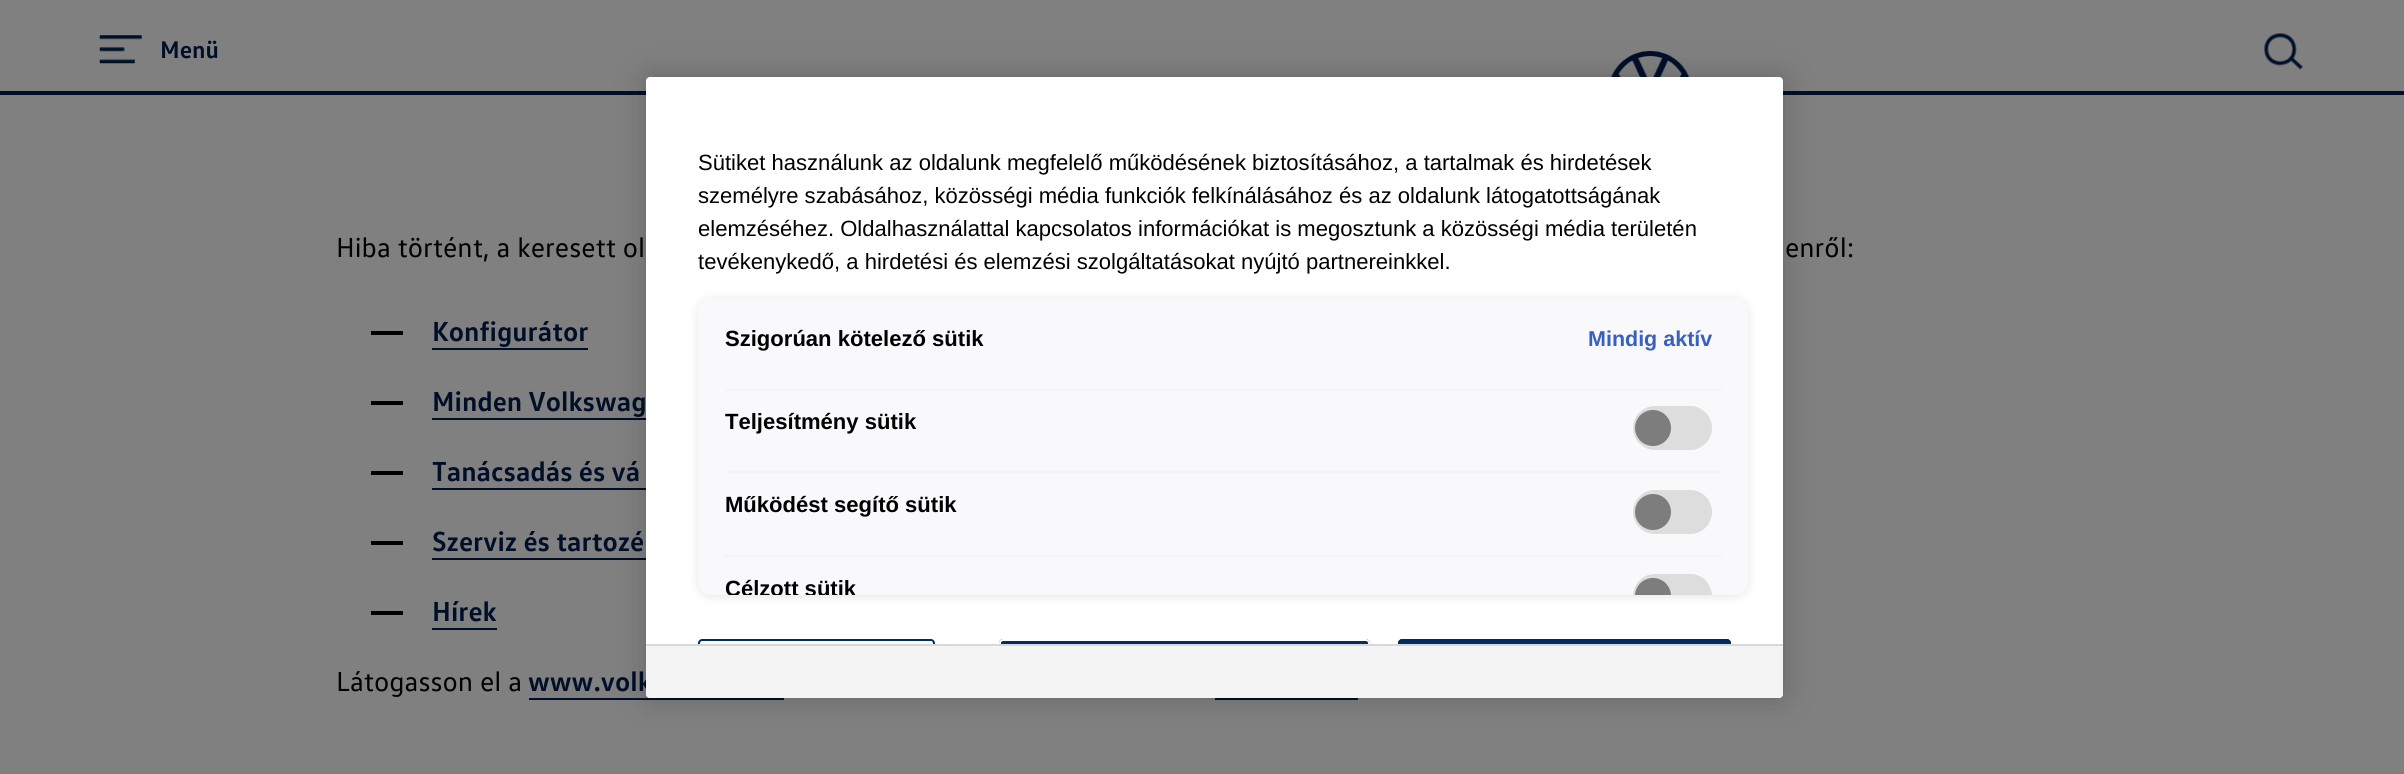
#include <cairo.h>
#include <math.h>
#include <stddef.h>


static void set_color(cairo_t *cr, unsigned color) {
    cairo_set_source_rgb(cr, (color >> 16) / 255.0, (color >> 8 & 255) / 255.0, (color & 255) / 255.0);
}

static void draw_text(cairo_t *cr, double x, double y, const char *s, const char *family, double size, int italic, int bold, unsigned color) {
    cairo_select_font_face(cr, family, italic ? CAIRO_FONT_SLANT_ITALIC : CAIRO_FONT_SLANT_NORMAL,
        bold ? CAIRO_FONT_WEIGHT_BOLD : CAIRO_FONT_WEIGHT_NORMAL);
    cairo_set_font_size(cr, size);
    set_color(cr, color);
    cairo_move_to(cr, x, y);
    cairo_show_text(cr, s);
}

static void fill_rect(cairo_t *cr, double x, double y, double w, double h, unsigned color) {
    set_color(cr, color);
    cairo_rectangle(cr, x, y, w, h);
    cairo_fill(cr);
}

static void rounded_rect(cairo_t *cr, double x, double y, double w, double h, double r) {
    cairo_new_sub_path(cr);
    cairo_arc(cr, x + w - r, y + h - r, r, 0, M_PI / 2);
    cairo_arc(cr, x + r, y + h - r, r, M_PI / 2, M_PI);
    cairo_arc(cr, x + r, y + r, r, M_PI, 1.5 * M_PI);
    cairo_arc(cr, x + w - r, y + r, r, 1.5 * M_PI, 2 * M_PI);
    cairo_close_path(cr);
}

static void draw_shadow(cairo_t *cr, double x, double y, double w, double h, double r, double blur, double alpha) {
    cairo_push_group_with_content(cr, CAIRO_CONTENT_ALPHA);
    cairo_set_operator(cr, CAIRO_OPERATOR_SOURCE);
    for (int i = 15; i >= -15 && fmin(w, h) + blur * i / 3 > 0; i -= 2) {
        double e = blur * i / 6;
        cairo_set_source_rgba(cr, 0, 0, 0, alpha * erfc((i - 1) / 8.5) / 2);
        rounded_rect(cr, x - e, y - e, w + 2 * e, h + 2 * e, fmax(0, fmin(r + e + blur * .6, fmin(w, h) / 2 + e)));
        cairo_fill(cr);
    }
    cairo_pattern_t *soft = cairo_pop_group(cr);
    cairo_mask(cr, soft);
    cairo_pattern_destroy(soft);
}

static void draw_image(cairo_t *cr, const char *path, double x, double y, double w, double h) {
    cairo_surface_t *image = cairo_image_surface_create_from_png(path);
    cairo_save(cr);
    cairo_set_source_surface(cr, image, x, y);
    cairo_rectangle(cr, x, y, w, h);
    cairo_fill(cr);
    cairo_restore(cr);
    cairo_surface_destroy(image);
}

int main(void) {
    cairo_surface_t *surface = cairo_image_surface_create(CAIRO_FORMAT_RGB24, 2404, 774);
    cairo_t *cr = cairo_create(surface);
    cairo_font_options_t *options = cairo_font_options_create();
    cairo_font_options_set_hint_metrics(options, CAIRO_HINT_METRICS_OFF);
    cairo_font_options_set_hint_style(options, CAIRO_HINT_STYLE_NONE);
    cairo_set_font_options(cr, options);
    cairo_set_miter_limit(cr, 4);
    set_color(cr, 0x808080);
    cairo_paint(cr);
    draw_image(cr, "assets/img1.png", 99, 35, 43, 29);
    draw_text(cr, 160, 58, "Menü", "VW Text", 24.5, 0, 1, 0x000F28);
    draw_image(cr, "assets/img2.png", 1611, 51, 79, 26);
    fill_rect(cr, 0, 91, 646, 4, 0x000F28);
    fill_rect(cr, 1783, 91, 621, 4, 0x000F28);
    draw_image(cr, "assets/img3.png", 2264, 33, 39, 37);
    draw_text(cr, 336, 257, "Hiba történt, a keresett ol", "VW Text", 28, 0, 0, 0x000000);
    draw_text(cr, 1785, 257, "enről:", "VW Text", 28, 0, 0, 0x000000);
    fill_rect(cr, 371, 331, 32, 4, 0x000000);
    draw_text(cr, 432, 341, "Konfigurátor", "VW Text", 28, 0, 1, 0x000F28);
    fill_rect(cr, 432, 348, 156, 2, 0x000F28);
    fill_rect(cr, 371, 401, 32, 4, 0x000000);
    draw_text(cr, 432, 411, "Minden Volkswag", "VW Text", 28, 0, 1, 0x000F28);
    fill_rect(cr, 432, 418, 214, 2, 0x000F28);
    fill_rect(cr, 371, 471, 32, 4, 0x000000);
    draw_text(cr, 432, 481, "Tanácsadás és vá", "VW Text", 28, 0, 1, 0x000F28);
    fill_rect(cr, 432, 488, 214, 2, 0x000F28);
    fill_rect(cr, 371, 541, 32, 4, 0x000000);
    draw_text(cr, 432, 551, "Szerviz és tartozé", "VW Text", 28, 0, 1, 0x000F28);
    fill_rect(cr, 432, 558, 214, 2, 0x000F28);
    fill_rect(cr, 371, 611, 32, 4, 0x000000);
    draw_text(cr, 432, 621, "Hírek", "VW Text", 28, 0, 1, 0x000F28);
    fill_rect(cr, 432, 628, 65, 2, 0x000F28);
    draw_text(cr, 336, 691, "Látogasson el a", "VW Text", 28, 0, 0, 0x000000);
    draw_text(cr, 528, 691, "www.volk", "VW Text", 28, 0, 1, 0x000F28);
    fill_rect(cr, 529, 698, 255, 2, 0x000F28);
    fill_rect(cr, 1215, 698, 143, 2, 0x000F28);
    set_color(cr, 0x000000);
    draw_shadow(cr, 646, 77, 1137, 621, 4, 16, 0.2);
    set_color(cr, 0xFFFFFF);
    rounded_rect(cr, 646, 77, 1137, 621, 4);
    cairo_fill(cr);
    draw_text(cr, 698, 170, "Sütiket használunk az oldalunk megfelelő működésének biztosításához, a tartalmak és hirdetések", "Liberation Sans", 22.05, 0, 0, 0x000000);
    draw_text(cr, 698, 203, "személyre szabásához, közösségi média funkciók felkínálásához és az oldalunk látogatottságának", "Liberation Sans", 22.05, 0, 0, 0x000000);
    draw_text(cr, 698, 236, "elemzéséhez. Oldalhasználattal kapcsolatos információkat is megosztunk a közösségi média területén", "Liberation Sans", 22.05, 0, 0, 0x000000);
    draw_text(cr, 698, 269, "tevékenykedő, a hirdetési és elemzési szolgáltatásokat nyújtó partnereinkkel.", "Liberation Sans", 22.05, 0, 0, 0x000000);
    set_color(cr, 0x000000);
    draw_shadow(cr, 698, 299, 1050, 298, 14, 5, 0.1);
    set_color(cr, 0xF9F9FC);
    rounded_rect(cr, 698, 298, 1050, 297, 14);
    cairo_fill(cr);
    fill_rect(cr, 725, 389, 997, 2, 0xF4F4F4);
    draw_text(cr, 725, 346, "Szigorúan kötelező sütik", "Liberation Sans", 22.05, 0, 1, 0x000000);
    draw_text(cr, 1588, 346, "Mindig aktív", "Liberation Sans", 21.5, 0, 1, 0x3860BE);
    fill_rect(cr, 725, 471, 997, 2, 0xF4F4F4);
    draw_text(cr, 725, 429, "Teljesítmény sütik", "Liberation Sans", 22.05, 0, 1, 0x000000);
    set_color(cr, 0xF2F1F1);
    rounded_rect(cr, 1633, 406, 79, 44, 22);
    cairo_fill(cr);
    set_color(cr, 0xDDDDDD);
    cairo_new_path(cr);
    cairo_move_to(cr, 1655, 406);
    cairo_line_to(cr, 1690, 406);
    cairo_curve_to(cr, 1702, 406, 1712, 416, 1712, 428);
    cairo_curve_to(cr, 1712, 440, 1702, 450, 1690, 450);
    cairo_line_to(cr, 1655, 450);
    cairo_curve_to(cr, 1643, 450, 1633, 440, 1633, 428);
    cairo_curve_to(cr, 1633, 416, 1643, 406, 1655, 406);
    cairo_close_path(cr);
    cairo_fill(cr);
    set_color(cr, 0x7D7D7D);
    cairo_arc(cr, 1653, 428, 18, 0, 2 * M_PI);
    cairo_fill(cr);
    fill_rect(cr, 725, 555, 997, 2, 0xF4F4F4);
    draw_text(cr, 725, 512, "Működést segítő sütik", "Liberation Sans", 22.05, 0, 1, 0x000000);
    set_color(cr, 0xF2F1F1);
    rounded_rect(cr, 1633, 490, 79, 44, 22);
    cairo_fill(cr);
    set_color(cr, 0xDDDDDD);
    cairo_new_path(cr);
    cairo_move_to(cr, 1655, 490);
    cairo_line_to(cr, 1690, 490);
    cairo_curve_to(cr, 1702, 490, 1712, 500, 1712, 512);
    cairo_curve_to(cr, 1712, 524, 1702, 534, 1690, 534);
    cairo_line_to(cr, 1655, 534);
    cairo_curve_to(cr, 1643, 534, 1633, 524, 1633, 512);
    cairo_curve_to(cr, 1633, 500, 1643, 490, 1655, 490);
    cairo_close_path(cr);
    cairo_fill(cr);
    set_color(cr, 0x7D7D7D);
    cairo_arc(cr, 1653, 512, 18, 0, 2 * M_PI);
    cairo_fill(cr);
    cairo_save(cr);
    rounded_rect(cr, 698, 298, 1050, 297, 14);
    cairo_clip(cr);
    draw_text(cr, 725, 596, "Célzott sütik", "Liberation Sans", 22.05, 0, 1, 0x000000);
    cairo_restore(cr);
    set_color(cr, 0xDDDDDD);
    cairo_new_path(cr);
    cairo_move_to(cr, 1655, 574);
    cairo_curve_to(cr, 1643, 574, 1634, 583, 1633, 595);
    cairo_line_to(cr, 1712, 595);
    cairo_curve_to(cr, 1711, 583, 1702, 574, 1690, 574);
    cairo_close_path(cr);
    cairo_fill(cr);
    set_color(cr, 0x7D7D7D);
    cairo_new_path(cr);
    cairo_move_to(cr, 1653, 578);
    cairo_curve_to(cr, 1663, 578, 1671, 586, 1671, 596);
    cairo_line_to(cr, 1671, 595);
    cairo_line_to(cr, 1635, 595);
    cairo_line_to(cr, 1635, 596);
    cairo_curve_to(cr, 1635, 586, 1643, 578, 1653, 578);
    cairo_close_path(cr);
    cairo_fill(cr);
    set_color(cr, 0x002E62);
    cairo_new_path(cr);
    cairo_move_to(cr, 702, 639);
    cairo_curve_to(cr, 700, 639, 698, 641, 698, 643);
    cairo_line_to(cr, 698, 698);
    cairo_line_to(cr, 700, 698);
    cairo_line_to(cr, 700, 643);
    cairo_curve_to(cr, 700, 642, 701, 641, 702, 641);
    cairo_line_to(cr, 931, 641);
    cairo_curve_to(cr, 932, 641, 933, 642, 933, 643);
    cairo_line_to(cr, 933, 698);
    cairo_line_to(cr, 935, 698);
    cairo_line_to(cr, 935, 643);
    cairo_curve_to(cr, 935, 641, 933, 639, 931, 639);
    cairo_close_path(cr);
    cairo_fill(cr);
    cairo_new_path(cr);
    cairo_move_to(cr, 1003, 639);
    cairo_line_to(cr, 1366, 639);
    cairo_curve_to(cr, 1368, 639, 1370, 641, 1370, 643);
    cairo_line_to(cr, 1370, 698);
    cairo_line_to(cr, 999, 698);
    cairo_line_to(cr, 999, 643);
    cairo_curve_to(cr, 999, 641, 1001, 639, 1003, 639);
    cairo_close_path(cr);
    cairo_fill(cr);
    set_color(cr, 0xFFFFFF);
    cairo_new_path(cr);
    cairo_move_to(cr, 1003, 639);
    cairo_curve_to(cr, 1001, 639, 999, 641, 999, 643);
    cairo_line_to(cr, 999, 698);
    cairo_line_to(cr, 1001, 698);
    cairo_line_to(cr, 1001, 643);
    cairo_curve_to(cr, 1001, 642, 1002, 641, 1003, 641);
    cairo_line_to(cr, 1366, 641);
    cairo_curve_to(cr, 1367, 641, 1368, 642, 1368, 643);
    cairo_line_to(cr, 1368, 698);
    cairo_line_to(cr, 1370, 698);
    cairo_line_to(cr, 1370, 643);
    cairo_curve_to(cr, 1370, 641, 1368, 639, 1366, 639);
    cairo_close_path(cr);
    cairo_fill(cr);
    set_color(cr, 0x002E62);
    cairo_new_path(cr);
    cairo_move_to(cr, 1402, 639);
    cairo_line_to(cr, 1727, 639);
    cairo_curve_to(cr, 1729, 639, 1731, 641, 1731, 643);
    cairo_line_to(cr, 1731, 698);
    cairo_line_to(cr, 1398, 698);
    cairo_line_to(cr, 1398, 643);
    cairo_curve_to(cr, 1398, 641, 1400, 639, 1402, 639);
    cairo_close_path(cr);
    cairo_fill(cr);
    cairo_new_path(cr);
    cairo_move_to(cr, 1402, 639);
    cairo_curve_to(cr, 1400, 639, 1398, 641, 1398, 643);
    cairo_line_to(cr, 1398, 698);
    cairo_line_to(cr, 1400, 698);
    cairo_line_to(cr, 1400, 643);
    cairo_curve_to(cr, 1400, 642, 1401, 641, 1402, 641);
    cairo_line_to(cr, 1727, 641);
    cairo_curve_to(cr, 1728, 641, 1729, 642, 1729, 643);
    cairo_line_to(cr, 1729, 698);
    cairo_line_to(cr, 1731, 698);
    cairo_line_to(cr, 1731, 643);
    cairo_curve_to(cr, 1731, 641, 1729, 639, 1727, 639);
    cairo_close_path(cr);
    cairo_fill(cr);
    set_color(cr, 0xF4F4F4);
    cairo_new_path(cr);
    cairo_move_to(cr, 646, 644);
    cairo_line_to(cr, 1783, 644);
    cairo_line_to(cr, 1783, 694);
    cairo_curve_to(cr, 1783, 696, 1781, 698, 1779, 698);
    cairo_line_to(cr, 650, 698);
    cairo_curve_to(cr, 648, 698, 646, 696, 646, 694);
    cairo_close_path(cr);
    cairo_fill(cr);
    fill_rect(cr, 646, 644, 1137, 2, 0xD8D8D8);
    cairo_surface_write_to_png(surface, "output.png");
    cairo_font_options_destroy(options);
    cairo_destroy(cr);
    cairo_surface_destroy(surface);
    return 0;
}
